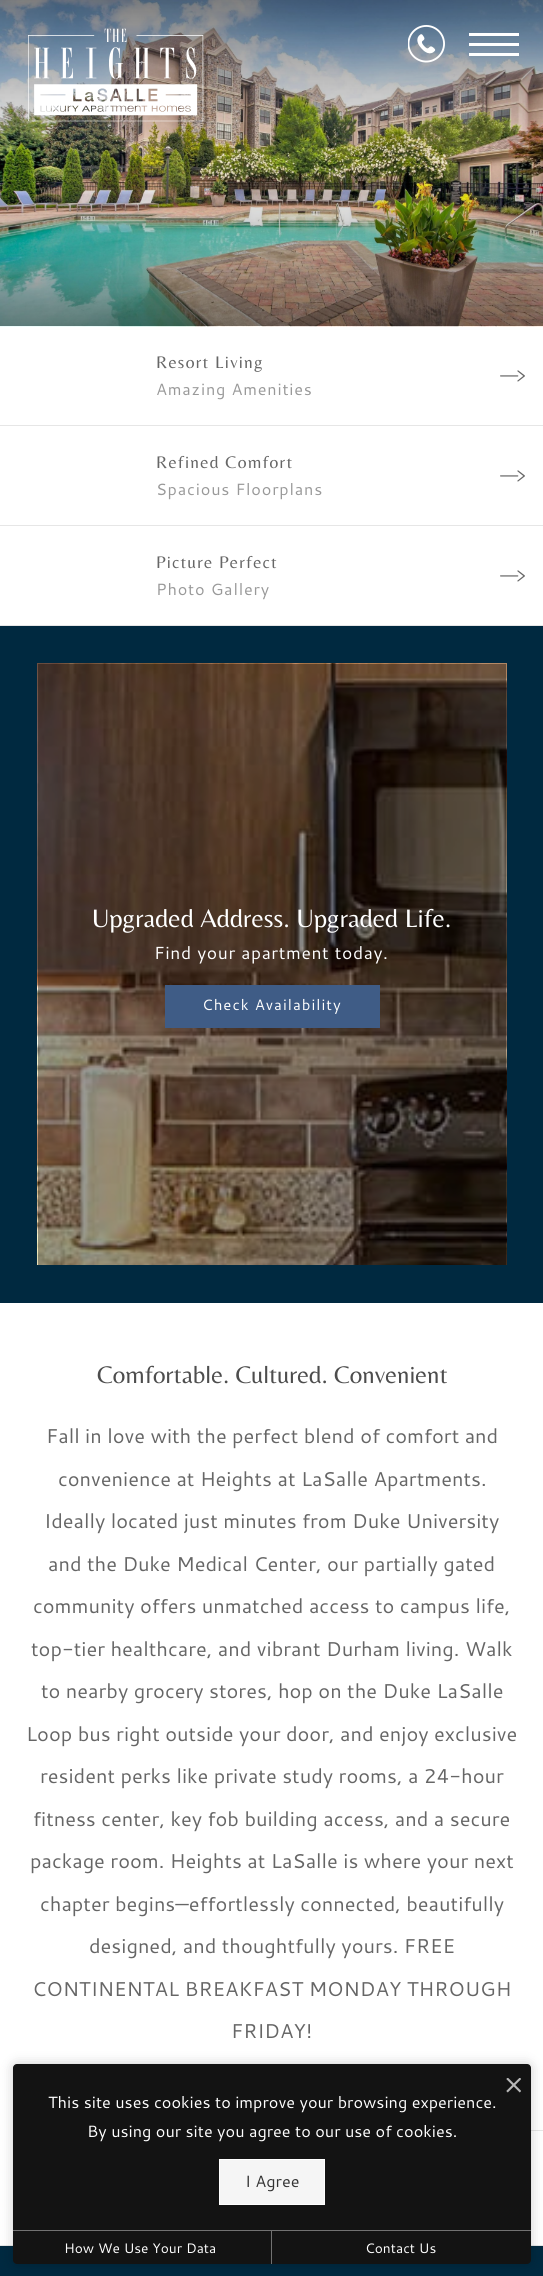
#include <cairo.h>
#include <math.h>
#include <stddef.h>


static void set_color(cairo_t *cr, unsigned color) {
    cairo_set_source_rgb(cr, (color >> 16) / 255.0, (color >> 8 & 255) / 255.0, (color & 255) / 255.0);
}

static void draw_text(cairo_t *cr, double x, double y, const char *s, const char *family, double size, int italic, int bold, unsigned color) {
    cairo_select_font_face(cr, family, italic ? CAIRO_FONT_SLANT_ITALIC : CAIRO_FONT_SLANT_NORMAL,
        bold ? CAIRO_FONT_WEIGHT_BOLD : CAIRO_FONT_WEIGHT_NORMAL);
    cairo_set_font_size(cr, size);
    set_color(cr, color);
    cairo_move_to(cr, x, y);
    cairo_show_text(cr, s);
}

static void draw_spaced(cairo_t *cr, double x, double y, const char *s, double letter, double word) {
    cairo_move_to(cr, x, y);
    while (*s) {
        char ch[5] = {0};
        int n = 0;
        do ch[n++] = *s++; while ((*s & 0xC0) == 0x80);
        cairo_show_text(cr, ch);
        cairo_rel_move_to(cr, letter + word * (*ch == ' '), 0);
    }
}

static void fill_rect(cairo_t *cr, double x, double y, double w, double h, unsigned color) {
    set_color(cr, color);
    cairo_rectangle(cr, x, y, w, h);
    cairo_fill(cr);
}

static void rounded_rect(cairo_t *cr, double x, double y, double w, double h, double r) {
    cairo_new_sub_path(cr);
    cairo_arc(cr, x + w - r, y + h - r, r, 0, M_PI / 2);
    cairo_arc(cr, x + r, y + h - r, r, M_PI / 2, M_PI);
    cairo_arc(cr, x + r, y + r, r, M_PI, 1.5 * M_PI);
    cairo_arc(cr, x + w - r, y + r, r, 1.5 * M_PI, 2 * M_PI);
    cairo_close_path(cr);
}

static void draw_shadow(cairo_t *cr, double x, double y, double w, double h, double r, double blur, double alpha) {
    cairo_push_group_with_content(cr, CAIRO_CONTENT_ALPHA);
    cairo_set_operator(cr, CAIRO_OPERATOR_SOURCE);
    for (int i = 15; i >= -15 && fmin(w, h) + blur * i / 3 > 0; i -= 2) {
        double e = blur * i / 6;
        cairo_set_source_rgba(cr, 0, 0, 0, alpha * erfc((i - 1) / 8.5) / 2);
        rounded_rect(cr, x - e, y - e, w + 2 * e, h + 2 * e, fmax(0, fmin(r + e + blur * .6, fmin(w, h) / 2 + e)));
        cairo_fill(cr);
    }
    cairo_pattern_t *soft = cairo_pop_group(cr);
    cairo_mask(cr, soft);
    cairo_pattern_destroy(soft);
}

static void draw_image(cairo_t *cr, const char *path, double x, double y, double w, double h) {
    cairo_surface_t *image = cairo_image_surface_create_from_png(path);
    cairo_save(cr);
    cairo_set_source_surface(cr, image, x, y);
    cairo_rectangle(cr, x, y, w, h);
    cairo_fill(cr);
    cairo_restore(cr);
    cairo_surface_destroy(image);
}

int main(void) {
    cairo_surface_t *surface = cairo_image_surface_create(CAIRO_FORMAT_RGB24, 543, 2276);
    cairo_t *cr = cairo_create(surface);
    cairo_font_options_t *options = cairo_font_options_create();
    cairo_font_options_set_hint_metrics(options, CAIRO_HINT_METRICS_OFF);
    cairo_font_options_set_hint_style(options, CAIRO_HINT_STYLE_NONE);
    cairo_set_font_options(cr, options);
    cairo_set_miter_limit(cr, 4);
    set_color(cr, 0xFFFFFF);
    cairo_paint(cr);
    draw_image(cr, "assets/img3.png", 0, 0, 543, 327);
    draw_image(cr, "assets/img1.png", 28, 28, 176, 94);
    draw_image(cr, "assets/img2.png", 408, 25, 37, 38);
    fill_rect(cr, 469, 33, 50, 3, 0xFFFFFF);
    fill_rect(cr, 469, 43, 50, 3, 0xFFFFFF);
    fill_rect(cr, 469, 53, 50, 3, 0xFFFFFF);
    fill_rect(cr, 0, 425, 543, 1, 0xE6E6E6);
    cairo_select_font_face(cr, "Belleza", CAIRO_FONT_SLANT_NORMAL, CAIRO_FONT_WEIGHT_NORMAL);
    cairo_set_font_size(cr, 17.5);
    set_color(cr, 0x666666);
    draw_spaced(cr, 156, 368, "Resort Living", 1.25, 0);
    draw_image(cr, "assets/img4.png", 500, 370, 25, 12);
    cairo_select_font_face(cr, "Cantarell", CAIRO_FONT_SLANT_NORMAL, CAIRO_FONT_WEIGHT_NORMAL);
    cairo_set_font_size(cr, 16.25);
    set_color(cr, 0x999999);
    draw_spaced(cr, 156, 395, "Amazing Amenities", 0.8, 0);
    fill_rect(cr, 0, 525, 543, 1, 0xE6E6E6);
    cairo_select_font_face(cr, "Belleza", CAIRO_FONT_SLANT_NORMAL, CAIRO_FONT_WEIGHT_NORMAL);
    cairo_set_font_size(cr, 17.5);
    set_color(cr, 0x666666);
    draw_spaced(cr, 156, 468, "Refined Comfort", 1.25, 0);
    draw_image(cr, "assets/img4.png", 500, 470, 25, 12);
    cairo_select_font_face(cr, "Cantarell", CAIRO_FONT_SLANT_NORMAL, CAIRO_FONT_WEIGHT_NORMAL);
    cairo_set_font_size(cr, 16.25);
    set_color(cr, 0x999999);
    draw_spaced(cr, 156, 495, "Spacious Floorplans", 0.8, 0);
    fill_rect(cr, 0, 625, 543, 1, 0xE6E6E6);
    cairo_select_font_face(cr, "Belleza", CAIRO_FONT_SLANT_NORMAL, CAIRO_FONT_WEIGHT_NORMAL);
    cairo_set_font_size(cr, 17.5);
    set_color(cr, 0x666666);
    draw_spaced(cr, 156, 568, "Picture Perfect", 1.25, 0);
    draw_image(cr, "assets/img4.png", 500, 570, 25, 12);
    cairo_select_font_face(cr, "Cantarell", CAIRO_FONT_SLANT_NORMAL, CAIRO_FONT_WEIGHT_NORMAL);
    cairo_set_font_size(cr, 16.25);
    set_color(cr, 0x999999);
    draw_spaced(cr, 156, 595, "Photo Gallery", 0.8, 0);
    fill_rect(cr, 0, 626, 543, 677, 0x002940);
    draw_image(cr, "assets/img5.png", 37, 663, 470, 602);
    draw_text(cr, 92, 927, "Upgraded Address. Upgraded Life.", "Belleza", 26.25, 0, 0, 0xFFFFFF);
    cairo_select_font_face(cr, "Cantarell", CAIRO_FONT_SLANT_NORMAL, CAIRO_FONT_WEIGHT_NORMAL);
    cairo_set_font_size(cr, 17.5);
    draw_spaced(cr, 154, 959, "Find your apartment today.", 0.6, 0);
    fill_rect(cr, 165, 985, 215, 43, 0x3F5C86);
    cairo_set_font_size(cr, 15);
    set_color(cr, 0xFFFFFF);
    draw_spaced(cr, 202, 1010, "Check Availability", 1, 0);
    fill_rect(cr, 0, 2245, 543, 1, 0xE6E6E6);
    draw_text(cr, 97, 1383, "Comfortable. Cultured. Convenient", "Belleza", 25, 0, 0, 0x4D4D4D);
    draw_text(cr, 46, 1443, "Fall in love with the perfect blend of comfort and", "Cantarell", 20, 0, 0, 0x666666);
    draw_text(cr, 58, 1486, "convenience at Heights at LaSalle Apartments.", "Cantarell", 20, 0, 0, 0x666666);
    draw_text(cr, 44, 1528, "Ideally located just minutes from Duke University", "Cantarell", 20, 0, 0, 0x666666);
    draw_text(cr, 48, 1571, "and the Duke Medical Center, our partially gated", "Cantarell", 20, 0, 0, 0x666666);
    draw_text(cr, 33, 1613, "community offers unmatched access to campus life,", "Cantarell", 20, 0, 0, 0x666666);
    draw_text(cr, 31, 1656, "top-tier healthcare, and vibrant Durham living. Walk", "Cantarell", 20, 0, 0, 0x666666);
    draw_text(cr, 41, 1698, "to nearby grocery stores, hop on the Duke LaSalle", "Cantarell", 20, 0, 0, 0x666666);
    draw_text(cr, 26, 1741, "Loop bus right outside your door, and enjoy exclusive", "Cantarell", 20, 0, 0, 0x666666);
    draw_text(cr, 40, 1783, "resident perks like private study rooms, a 24-hour", "Cantarell", 20, 0, 0, 0x666666);
    draw_text(cr, 33, 1826, "fitness center, key fob building access, and a secure", "Cantarell", 20, 0, 0, 0x666666);
    draw_text(cr, 30, 1868, "package room. Heights at LaSalle is where your next", "Cantarell", 20, 0, 0, 0x666666);
    draw_text(cr, 40, 1911, "chapter begins—effortlessly connected, beautifully", "Cantarell", 20, 0, 0, 0x666666);
    draw_text(cr, 89, 1953, "designed, and thoughtfully yours. FREE", "Cantarell", 20, 0, 0, 0x666666);
    draw_text(cr, 32, 1996, "CONTINENTAL BREAKFAST MONDAY THROUGH", "Cantarell", 20, 0, 0, 0x666666);
    draw_text(cr, 231, 2038, "FRIDAY!", "Cantarell", 20, 0, 0, 0x666666);
    fill_rect(cr, 531, 2130, 12, 1, 0xE6E6E6);
    fill_rect(cr, 0, 2246, 543, 30, 0x002940);
    set_color(cr, 0x000000);
    draw_shadow(cr, 13, 2064, 518, 200, 4, 6, 0.2);
    set_color(cr, 0x131313);
    rounded_rect(cr, 13, 2064, 518, 200, 4);
    cairo_fill(cr);
    draw_image(cr, "assets/img6.png", 506, 2078, 15, 15);
    draw_text(cr, 48, 2108, "This site uses cookies to improve your browsing experience.", "Cantarell", 16.25, 0, 0, 0xFFFFFF);
    draw_text(cr, 87, 2137, "By using our site you agree to our use of cookies.", "Cantarell", 16.25, 0, 0, 0xFFFFFF);
    set_color(cr, 0xF5F5F5);
    cairo_rectangle(cr, 219.5, 2159.5, 105, 45);
    cairo_fill_preserve(cr);
    set_color(cr, 0xFFFFFF);
    cairo_set_line_width(cr, 1);
    cairo_stroke(cr);
    draw_text(cr, 245, 2187, "I Agree", "Cantarell", 16.25, 0, 0, 0x333333);
    fill_rect(cr, 13, 2230, 518, 1, 0x717171);
    fill_rect(cr, 271, 2231, 1, 33, 0x717171);
    draw_text(cr, 64, 2253, "How We Use Your Data", "Cantarell", 13.75, 0, 0, 0xFFFFFF);
    draw_text(cr, 365, 2253, "Contact Us", "Cantarell", 13.75, 0, 0, 0xFFFFFF);
    cairo_surface_write_to_png(surface, "output.png");
    cairo_font_options_destroy(options);
    cairo_destroy(cr);
    cairo_surface_destroy(surface);
    return 0;
}
